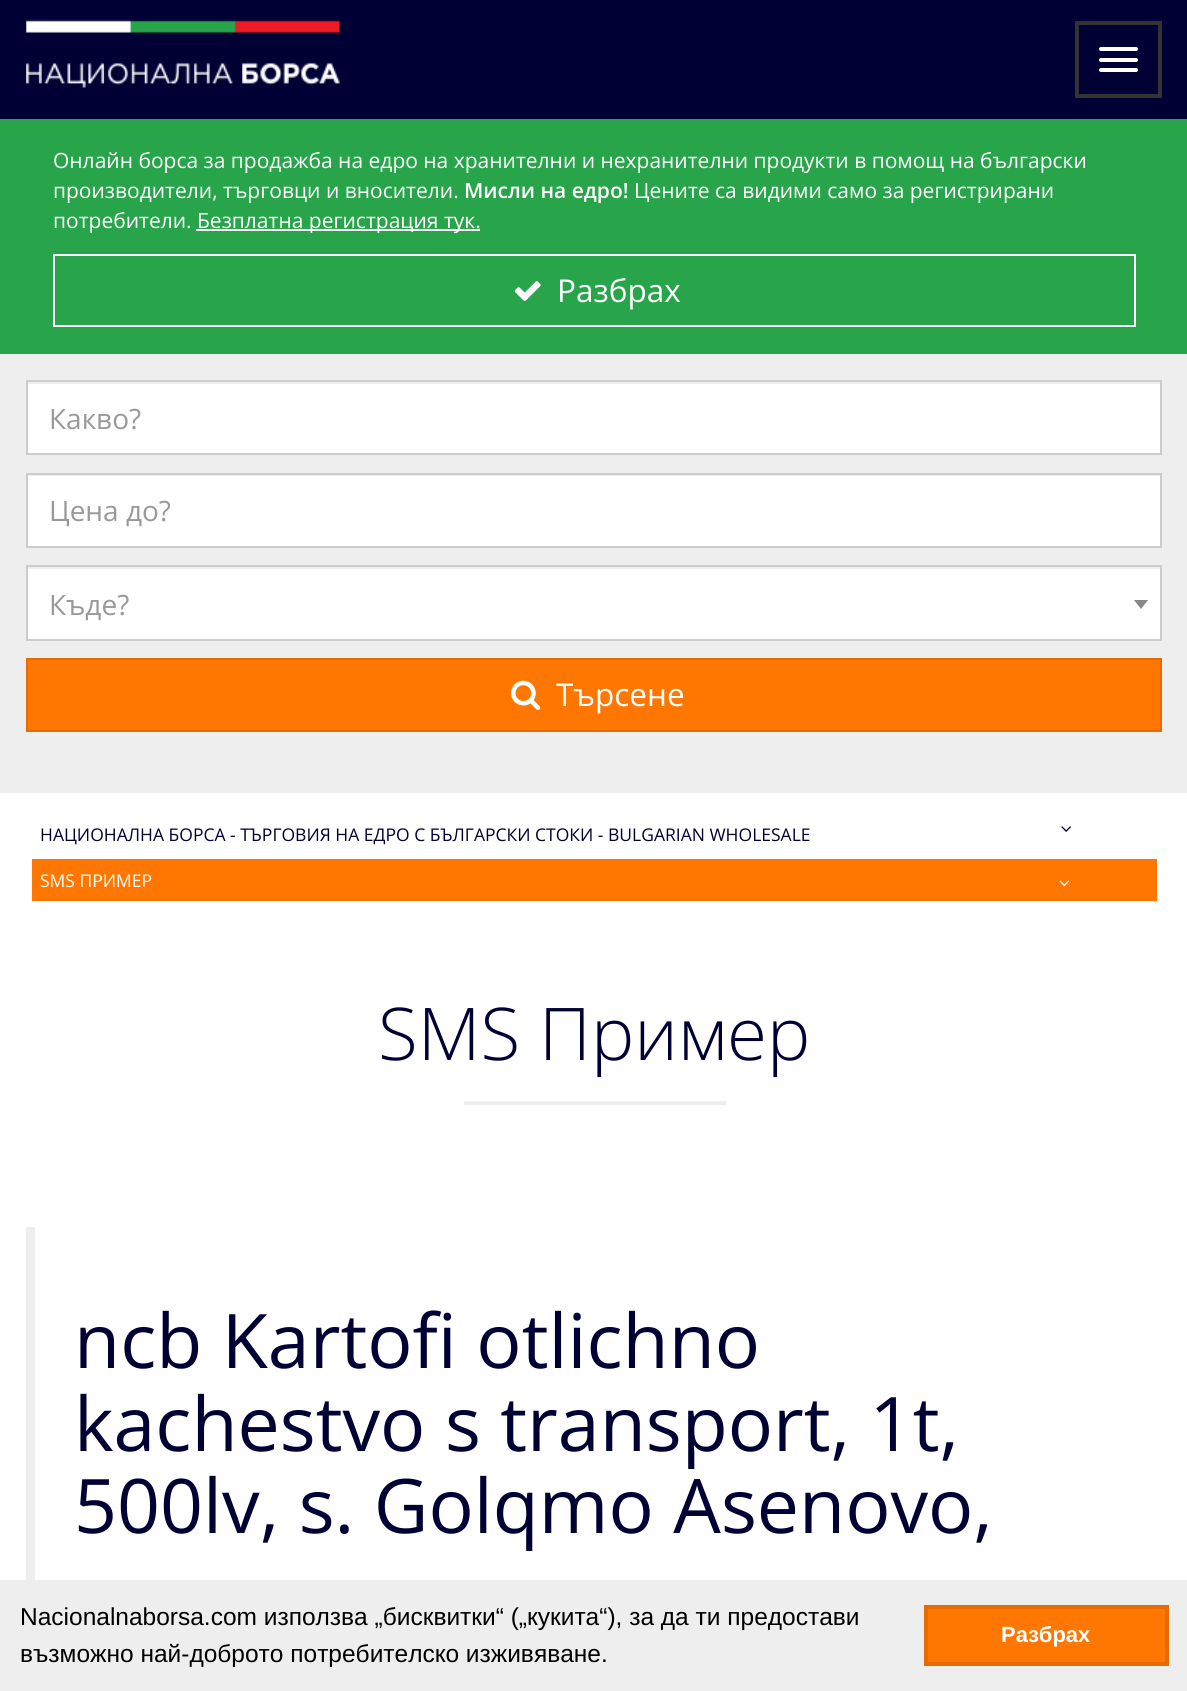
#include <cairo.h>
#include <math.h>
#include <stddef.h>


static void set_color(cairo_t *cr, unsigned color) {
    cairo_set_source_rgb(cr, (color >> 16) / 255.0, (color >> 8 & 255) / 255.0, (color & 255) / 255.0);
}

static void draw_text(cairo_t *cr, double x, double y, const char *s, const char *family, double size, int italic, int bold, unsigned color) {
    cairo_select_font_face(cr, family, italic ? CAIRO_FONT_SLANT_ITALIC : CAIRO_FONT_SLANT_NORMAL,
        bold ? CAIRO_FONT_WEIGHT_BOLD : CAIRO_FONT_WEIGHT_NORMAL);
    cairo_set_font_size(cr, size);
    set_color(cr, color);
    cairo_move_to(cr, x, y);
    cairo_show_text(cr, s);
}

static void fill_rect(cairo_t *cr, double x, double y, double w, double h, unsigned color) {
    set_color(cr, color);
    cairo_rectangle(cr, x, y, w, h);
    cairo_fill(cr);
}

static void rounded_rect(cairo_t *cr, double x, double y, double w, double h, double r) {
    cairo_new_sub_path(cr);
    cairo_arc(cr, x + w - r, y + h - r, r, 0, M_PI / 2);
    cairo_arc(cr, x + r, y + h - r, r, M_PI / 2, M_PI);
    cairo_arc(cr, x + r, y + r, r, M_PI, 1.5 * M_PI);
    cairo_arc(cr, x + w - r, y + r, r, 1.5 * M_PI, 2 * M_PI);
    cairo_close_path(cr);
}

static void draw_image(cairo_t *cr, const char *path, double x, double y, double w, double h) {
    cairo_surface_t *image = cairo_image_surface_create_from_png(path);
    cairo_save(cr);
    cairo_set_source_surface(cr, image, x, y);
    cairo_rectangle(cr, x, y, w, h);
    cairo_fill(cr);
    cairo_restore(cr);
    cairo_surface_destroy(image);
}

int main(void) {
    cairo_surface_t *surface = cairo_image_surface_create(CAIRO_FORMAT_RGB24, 1187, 1691);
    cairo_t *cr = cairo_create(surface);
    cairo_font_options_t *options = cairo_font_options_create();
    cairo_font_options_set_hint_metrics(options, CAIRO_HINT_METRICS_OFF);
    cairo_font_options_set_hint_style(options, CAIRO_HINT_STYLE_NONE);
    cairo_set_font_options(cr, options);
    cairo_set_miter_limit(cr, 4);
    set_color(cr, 0xFFFFFF);
    cairo_paint(cr);
    fill_rect(cr, 0, 0, 1187, 119, 0x000034);
    draw_image(cr, "assets/img1.png", 26, 19, 314, 69);
    cairo_rectangle(cr, 1077, 23, 83, 73);
    set_color(cr, 0x333333);
    cairo_set_line_width(cr, 4);
    cairo_stroke(cr);
    set_color(cr, 0xFFFFFF);
    rounded_rect(cr, 1099, 47, 39, 4, 2);
    cairo_fill(cr);
    rounded_rect(cr, 1099, 58, 39, 4, 2);
    cairo_fill(cr);
    rounded_rect(cr, 1099, 68, 39, 4, 2);
    cairo_fill(cr);
    fill_rect(cr, 0, 119, 1187, 235, 0x28A54A);
    draw_text(cr, 53, 168, "Онлайн борса за продажба на едро на хранителни и нехранителни продукти в помощ на български", "Open Sans", 21, 0, 0, 0xFFFFFF);
    draw_text(cr, 53, 198, "производители, търговци и вносители.", "Open Sans", 21, 0, 0, 0xFFFFFF);
    draw_text(cr, 464, 198, "Мисли на едро!", "Open Sans SemiBold", 21, 0, 0, 0xFFFFFF);
    draw_text(cr, 634, 198, "Цените са видими само за регистрирани", "Open Sans", 21, 0, 0, 0xFFFFFF);
    draw_text(cr, 53, 228, "потребители.", "Open Sans", 21, 0, 0, 0xFFFFFF);
    fill_rect(cr, 196, 229, 284, 2, 0xFFFFFF);
    draw_text(cr, 197, 228, "Безплатна регистрация тук.", "Open Sans", 21, 0, 0, 0xFFFFFF);
    cairo_rectangle(cr, 54, 255, 1081, 71);
    cairo_set_line_width(cr, 2);
    cairo_stroke(cr);
    draw_image(cr, "assets/img2.png", 514, 281, 27, 20);
    draw_text(cr, 557, 302, "Разбрах", "Open Sans", 31.5, 0, 0, 0xFFFFFF);
    fill_rect(cr, 0, 354, 1187, 439, 0xEEEEEE);
    fill_rect(cr, 28, 384, 1132, 69, 0xFFFFFF);
    cairo_rectangle(cr, 27, 381, 1134, 73);
    set_color(cr, 0xCCCCCC);
    cairo_stroke(cr);
    draw_text(cr, 49, 429, "Какво?", "Open Sans", 28, 0, 0, 0x999999);
    fill_rect(cr, 28, 476, 1132, 70, 0xFFFFFF);
    cairo_rectangle(cr, 27, 474, 1134, 73);
    set_color(cr, 0xCCCCCC);
    cairo_stroke(cr);
    draw_text(cr, 49, 521, "Цена до?", "Open Sans", 28, 0, 0, 0x999999);
    fill_rect(cr, 28, 569, 1132, 70, 0xFFFFFF);
    cairo_rectangle(cr, 27, 566, 1134, 74);
    set_color(cr, 0xCCCCCC);
    cairo_stroke(cr);
    draw_text(cr, 49, 615, "Къде?", "Open Sans", 28, 0, 0, 0x999999);
    set_color(cr, 0x888888);
    cairo_new_path(cr);
    cairo_move_to(cr, 1134, 600);
    cairo_line_to(cr, 1148, 600);
    cairo_line_to(cr, 1141, 609);
    cairo_close_path(cr);
    cairo_fill(cr);
    set_color(cr, 0xFF7700);
    cairo_rectangle(cr, 27, 659, 1134, 72);
    cairo_fill_preserve(cr);
    set_color(cr, 0xE66B00);
    cairo_stroke(cr);
    draw_image(cr, "assets/img3.png", 511, 680, 30, 30);
    draw_text(cr, 556, 706, "Търсене", "Open Sans", 31.5, 0, 0, 0xFFFFFF);
    draw_text(cr, 40, 841, "НАЦИОНАЛНА БОРСА - ТЪРГОВИЯ НА ЕДРО С БЪЛГАРСКИ СТОКИ - BULGARIAN WHOLESALE", "Open Sans", 17.5, 0, 0, 0x000034);
    draw_image(cr, "assets/img4.png", 1061, 826, 10, 6);
    fill_rect(cr, 32, 859, 1125, 42, 0xFF7700);
    draw_text(cr, 40, 887, "SMS ПРИМЕР", "Open Sans", 17.5, 0, 0, 0xFFFFFF);
    draw_image(cr, "assets/img5.png", 1059, 880, 11, 7);
    draw_text(cr, 378, 1060, "SMS Пример", "Open Sans Light", 72.75, 0, 0, 0x000034);
    fill_rect(cr, 464, 1101, 262, 4, 0xEEEEEE);
    fill_rect(cr, 26, 1227, 9, 353, 0xEEEEEE);
    draw_text(cr, 74, 1368, "ncb Kartofi otlichno", "Open Sans", 75.25, 0, 0, 0x000034);
    draw_text(cr, 74, 1451, "kachestvo s transport, 1t,", "Open Sans", 75.25, 0, 0, 0x000034);
    draw_text(cr, 74, 1533, "500lv, s. Golqmo Asenovo,", "Open Sans", 75.25, 0, 0, 0x000034);
    fill_rect(cr, 0, 1580, 1187, 111, 0xEEEEEE);
    draw_text(cr, 20, 1625, "Nacionalnaborsa.com използва „бисквитки“ („кукита“), за да ти предостави", "Liberation Sans", 24.5, 0, 0, 0x000000);
    draw_text(cr, 20, 1662, "възможно най-доброто потребителско изживяване.", "Liberation Sans", 24.5, 0, 0, 0x000000);
    set_color(cr, 0xFF7700);
    cairo_rectangle(cr, 926, 1607, 241, 57);
    cairo_fill_preserve(cr);
    set_color(cr, 0xE66B00);
    cairo_set_line_width(cr, 4);
    cairo_stroke(cr);
    draw_text(cr, 1001, 1642, "Разбрах", "Liberation Sans", 22, 0, 1, 0xFFFFFF);
    cairo_surface_write_to_png(surface, "output.png");
    cairo_font_options_destroy(options);
    cairo_destroy(cr);
    cairo_surface_destroy(surface);
    return 0;
}
